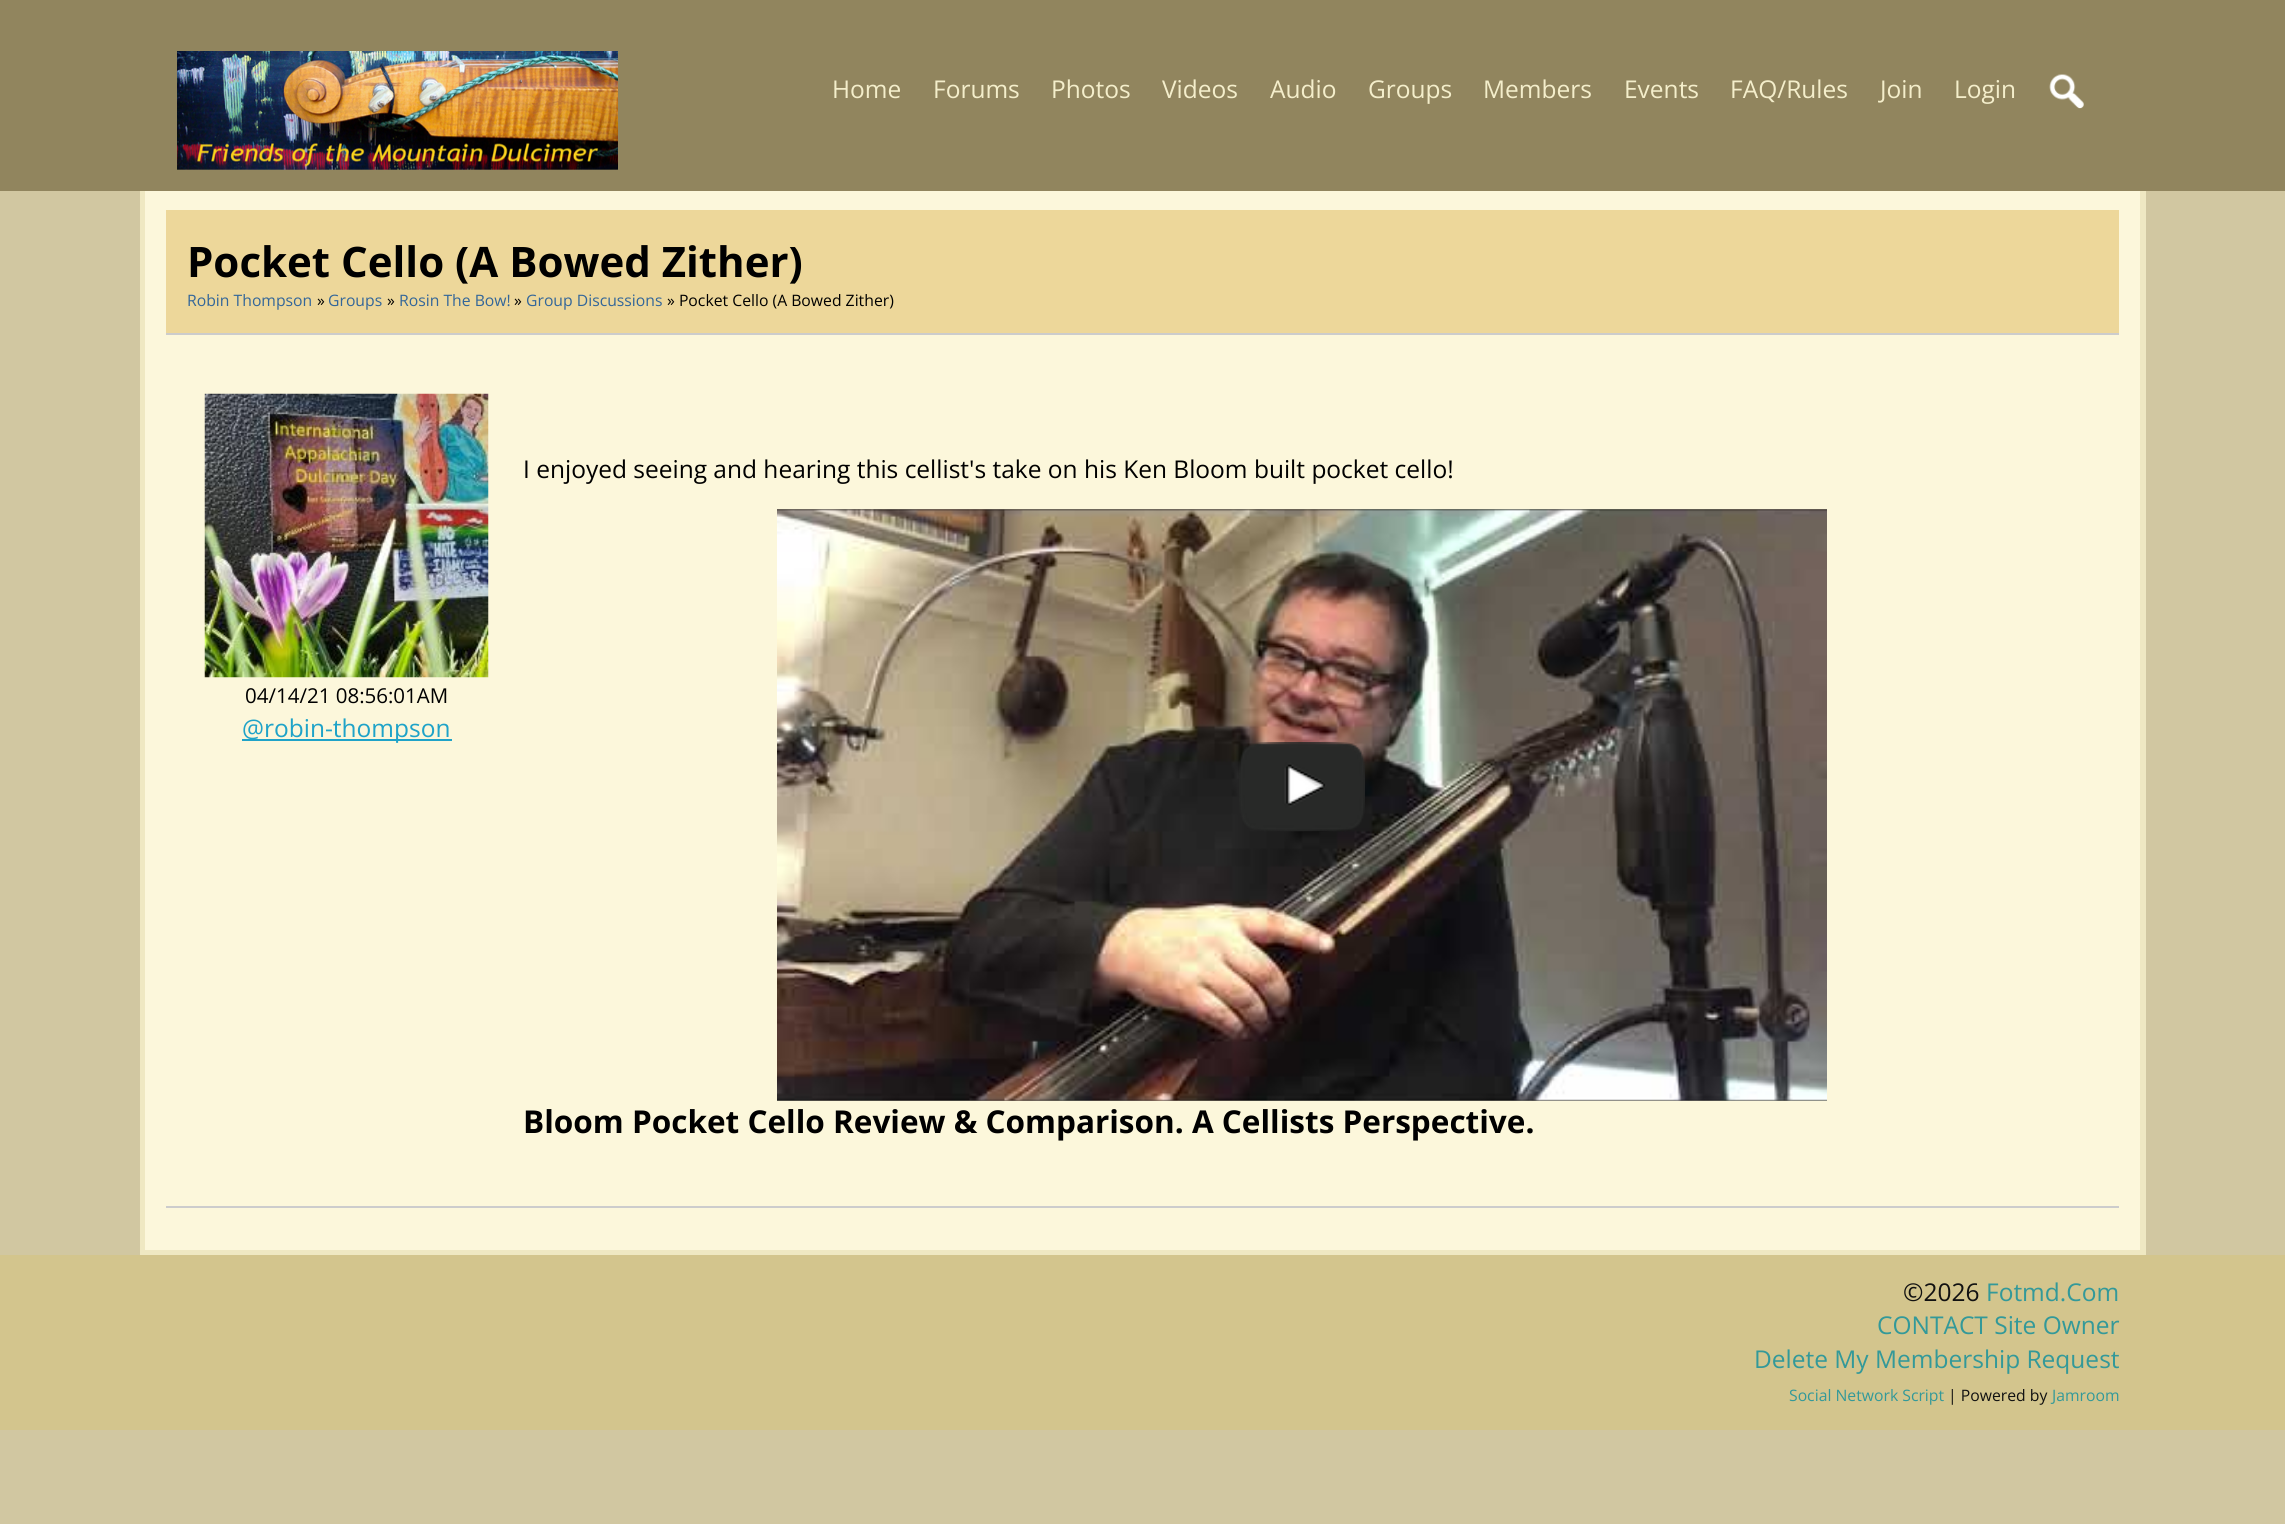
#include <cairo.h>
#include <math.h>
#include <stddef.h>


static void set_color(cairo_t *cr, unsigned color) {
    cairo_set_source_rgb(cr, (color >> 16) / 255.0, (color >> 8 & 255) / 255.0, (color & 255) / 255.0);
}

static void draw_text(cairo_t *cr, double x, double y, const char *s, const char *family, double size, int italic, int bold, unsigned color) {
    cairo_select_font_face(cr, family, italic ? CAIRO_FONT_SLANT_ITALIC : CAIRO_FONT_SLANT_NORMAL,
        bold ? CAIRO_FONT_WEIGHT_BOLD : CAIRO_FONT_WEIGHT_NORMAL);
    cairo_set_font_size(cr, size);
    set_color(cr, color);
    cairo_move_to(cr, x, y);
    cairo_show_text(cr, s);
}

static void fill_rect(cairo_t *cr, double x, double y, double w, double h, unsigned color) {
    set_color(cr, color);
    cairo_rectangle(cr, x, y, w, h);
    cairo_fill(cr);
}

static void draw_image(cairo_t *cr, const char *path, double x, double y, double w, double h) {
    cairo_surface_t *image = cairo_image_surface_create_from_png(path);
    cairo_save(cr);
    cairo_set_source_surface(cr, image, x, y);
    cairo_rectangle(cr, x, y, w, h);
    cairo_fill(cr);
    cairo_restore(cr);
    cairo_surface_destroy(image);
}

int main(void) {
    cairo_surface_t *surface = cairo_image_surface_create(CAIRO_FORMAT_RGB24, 2285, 1524);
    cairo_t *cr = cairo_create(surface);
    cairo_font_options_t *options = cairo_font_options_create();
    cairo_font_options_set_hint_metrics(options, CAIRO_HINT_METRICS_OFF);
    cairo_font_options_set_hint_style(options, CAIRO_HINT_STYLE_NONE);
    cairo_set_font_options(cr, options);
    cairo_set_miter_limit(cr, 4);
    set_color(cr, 0xD1C7A1);
    cairo_paint(cr);
    fill_rect(cr, 0, 0, 2285, 191, 0x91855E);
    draw_image(cr, "assets/img1.png", 177, 51, 441, 119);
    draw_text(cr, 832, 98, "Home", "Open Sans", 24.5, 0, 0, 0xF4EECB);
    draw_text(cr, 933, 98, "Forums", "Open Sans", 24.5, 0, 0, 0xF4EECB);
    draw_text(cr, 1051, 98, "Photos", "Open Sans", 24.5, 0, 0, 0xF4EECB);
    draw_text(cr, 1162, 98, "Videos", "Open Sans", 24.5, 0, 0, 0xF4EECB);
    draw_text(cr, 1270, 98, "Audio", "Open Sans", 24.5, 0, 0, 0xF4EECB);
    draw_text(cr, 1368, 98, "Groups", "Open Sans", 24.5, 0, 0, 0xF4EECB);
    draw_text(cr, 1483, 98, "Members", "Open Sans", 24.5, 0, 0, 0xF4EECB);
    draw_text(cr, 1624, 98, "Events", "Open Sans", 24.5, 0, 0, 0xF4EECB);
    draw_text(cr, 1730, 98, "FAQ/Rules", "Open Sans", 24.5, 0, 0, 0xF4EECB);
    draw_text(cr, 1880, 98, "Join", "Open Sans", 24.5, 0, 0, 0xF4EECB);
    draw_text(cr, 1954, 98, "Login", "Open Sans", 24.5, 0, 0, 0xF4EECB);
    draw_image(cr, "assets/img2.png", 2049, 74, 35, 35);
    fill_rect(cr, 140, 191, 2006, 1064, 0xEFE8C2);
    fill_rect(cr, 145, 191, 1995, 1059, 0xFCF7DB);
    fill_rect(cr, 166, 210, 1953, 123, 0xEDD79A);
    fill_rect(cr, 166, 333, 1953, 2, 0xCCCCCC);
    draw_text(cr, 187, 277, "Pocket Cello (A Bowed Zither)", "Open Sans", 42, 0, 1, 0x000000);
    draw_text(cr, 187, 306, "Robin Thompson", "Open Sans", 15.75, 0, 0, 0x336699);
    draw_text(cr, 317, 306, "»", "Open Sans", 15.75, 0, 0, 0x000000);
    draw_text(cr, 328, 306, "Groups", "Open Sans", 15.75, 0, 0, 0x336699);
    draw_text(cr, 387, 306, "»", "Open Sans", 15.75, 0, 0, 0x000000);
    draw_text(cr, 399, 306, "Rosin The Bow!", "Open Sans", 15.75, 0, 0, 0x336699);
    draw_text(cr, 514, 306, "»", "Open Sans", 15.75, 0, 0, 0x000000);
    draw_text(cr, 526, 306, "Group Discussions", "Open Sans", 15.75, 0, 0, 0x336699);
    draw_text(cr, 667, 306, "» Pocket Cello (A Bowed Zither)", "Open Sans", 15.75, 0, 0, 0x000000);
    fill_rect(cr, 166, 1206, 1953, 2, 0xCCCCCC);
    draw_image(cr, "assets/img3.png", 204, 393, 285, 285);
    draw_text(cr, 245, 703, "04/14/21 08:56:01AM", "Open Sans", 20.5, 0, 0, 0x000000);
    fill_rect(cr, 242, 739, 210, 2, 0x1FA3C8);
    draw_text(cr, 242, 737, "@robin-thompson", "Open Sans", 24.5, 0, 0, 0x1FA3C8);
    draw_text(cr, 523, 478, "I enjoyed seeing and hearing this cellist's take on his Ken Bloom built pocket cello!", "Open Sans", 24.5, 0, 0, 0x000000);
    draw_image(cr, "assets/img4.png", 777, 509, 1050, 592);
    draw_image(cr, "assets/img5.png", 1239, 742, 126, 90);
    draw_text(cr, 523, 1133, "Bloom Pocket Cello Review & Comparison. A Cellists Perspective.", "Open Sans", 31.5, 0, 1, 0x000000);
    fill_rect(cr, 0, 1255, 2285, 175, 0xD3C58D);
    draw_text(cr, 1903, 1301, "©2026", "Open Sans", 24.5, 0, 0, 0x111111);
    draw_text(cr, 1986, 1301, "Fotmd.Com", "Open Sans", 24.5, 0, 0, 0x339999);
    draw_text(cr, 1877, 1334, "CONTACT Site Owner", "Open Sans", 24.5, 0, 0, 0x339999);
    draw_text(cr, 1754, 1368, "Delete My Membership Request", "Open Sans", 24.5, 0, 0, 0x339999);
    draw_text(cr, 1789, 1401, "Social Network Script", "Open Sans", 15.75, 0, 0, 0x339999);
    draw_text(cr, 1948, 1401, "| Powered by", "Open Sans", 15.75, 0, 0, 0x111111);
    draw_text(cr, 2052, 1401, "Jamroom", "Open Sans", 15.75, 0, 0, 0x339999);
    cairo_surface_write_to_png(surface, "output.png");
    cairo_font_options_destroy(options);
    cairo_destroy(cr);
    cairo_surface_destroy(surface);
    return 0;
}
